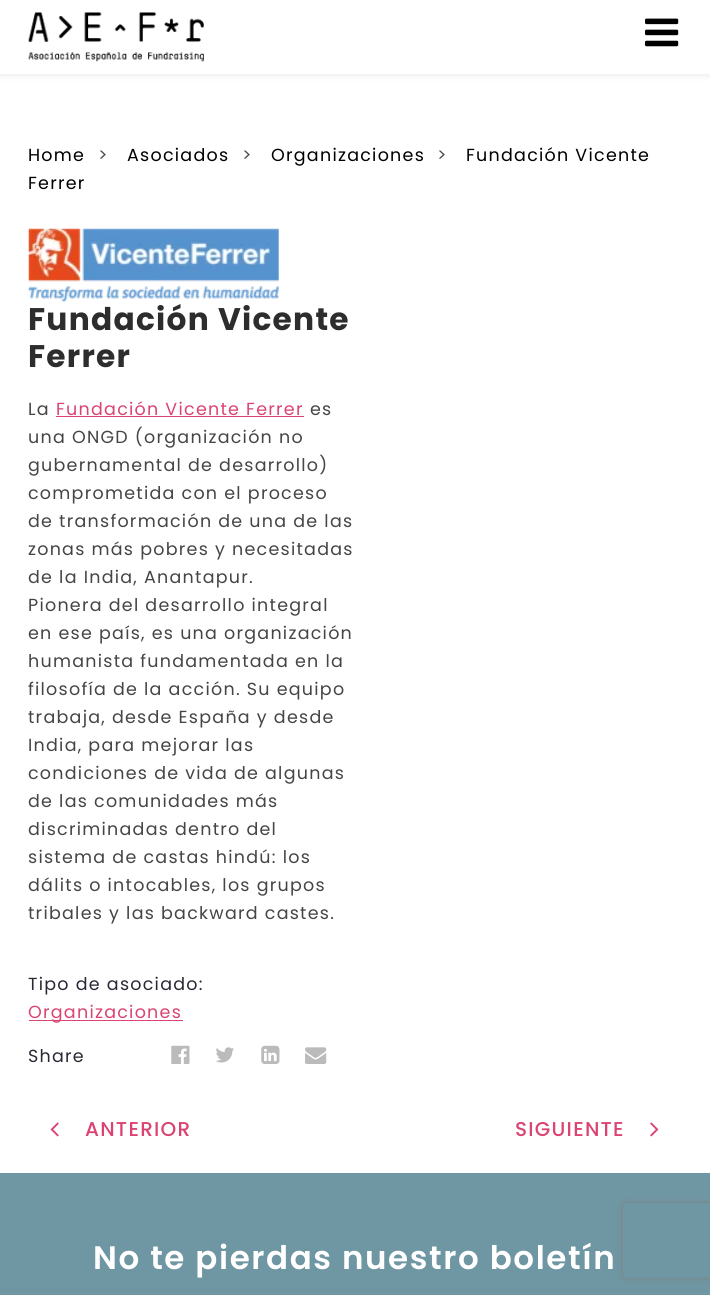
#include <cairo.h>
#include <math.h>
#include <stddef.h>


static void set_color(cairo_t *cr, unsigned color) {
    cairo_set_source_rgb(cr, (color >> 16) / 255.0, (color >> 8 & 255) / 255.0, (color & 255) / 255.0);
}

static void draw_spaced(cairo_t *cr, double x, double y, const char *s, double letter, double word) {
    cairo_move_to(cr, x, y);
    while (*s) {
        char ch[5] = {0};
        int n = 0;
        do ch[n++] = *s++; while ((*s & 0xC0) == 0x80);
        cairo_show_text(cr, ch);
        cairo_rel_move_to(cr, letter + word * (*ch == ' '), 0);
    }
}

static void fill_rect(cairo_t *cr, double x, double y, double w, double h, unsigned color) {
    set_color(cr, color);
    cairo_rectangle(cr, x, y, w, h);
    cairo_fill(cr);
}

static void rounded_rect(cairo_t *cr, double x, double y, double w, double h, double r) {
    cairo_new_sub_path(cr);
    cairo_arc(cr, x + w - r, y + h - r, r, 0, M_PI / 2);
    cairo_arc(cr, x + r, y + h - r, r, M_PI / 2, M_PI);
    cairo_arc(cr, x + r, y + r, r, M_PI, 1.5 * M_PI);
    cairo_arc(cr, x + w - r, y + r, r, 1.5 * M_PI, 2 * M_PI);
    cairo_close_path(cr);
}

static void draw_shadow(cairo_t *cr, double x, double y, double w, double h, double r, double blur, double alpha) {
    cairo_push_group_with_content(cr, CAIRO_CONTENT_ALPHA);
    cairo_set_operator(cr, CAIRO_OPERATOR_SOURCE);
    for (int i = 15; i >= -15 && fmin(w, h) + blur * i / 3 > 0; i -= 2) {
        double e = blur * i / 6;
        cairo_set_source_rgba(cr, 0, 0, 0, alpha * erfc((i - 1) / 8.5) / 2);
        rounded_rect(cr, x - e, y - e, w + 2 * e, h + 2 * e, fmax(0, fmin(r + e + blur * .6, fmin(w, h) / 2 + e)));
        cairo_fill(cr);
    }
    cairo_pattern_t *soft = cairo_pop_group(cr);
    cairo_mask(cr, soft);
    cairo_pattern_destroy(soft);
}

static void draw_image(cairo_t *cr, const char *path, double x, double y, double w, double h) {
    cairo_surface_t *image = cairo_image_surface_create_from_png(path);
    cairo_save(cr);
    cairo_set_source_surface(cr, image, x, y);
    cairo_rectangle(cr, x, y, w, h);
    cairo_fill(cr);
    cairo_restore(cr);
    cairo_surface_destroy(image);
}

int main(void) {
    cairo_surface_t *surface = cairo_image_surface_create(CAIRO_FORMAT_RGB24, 710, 1295);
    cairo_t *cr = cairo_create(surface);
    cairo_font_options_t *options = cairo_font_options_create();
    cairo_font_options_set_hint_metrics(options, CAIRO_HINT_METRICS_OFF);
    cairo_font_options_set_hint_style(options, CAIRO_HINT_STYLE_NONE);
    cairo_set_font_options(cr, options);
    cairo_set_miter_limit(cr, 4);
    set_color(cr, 0xFFFFFF);
    cairo_paint(cr);
    set_color(cr, 0x000000);
    draw_shadow(cr, 0, 1, 710, 74, 0, 4, 0.09);
    fill_rect(cr, 0, 0, 710, 74, 0xFFFFFF);
    draw_image(cr, "assets/img1.png", 28, 12, 176, 50);
    draw_image(cr, "assets/img2.png", 645, 18, 34, 29);
    cairo_select_font_face(cr, "Poppins", CAIRO_FONT_SLANT_NORMAL, CAIRO_FONT_WEIGHT_NORMAL);
    cairo_set_font_size(cr, 17.5);
    set_color(cr, 0x000000);
    draw_spaced(cr, 28, 161, "Home", 1.25, 0);
    set_color(cr, 0x4D4D4D);
    draw_spaced(cr, 98, 161, ">", 1.25, 0);
    set_color(cr, 0x000000);
    draw_spaced(cr, 127, 161, "Asociados", 1.25, 0);
    set_color(cr, 0x4D4D4D);
    draw_spaced(cr, 242, 161, ">", 1.25, 0);
    set_color(cr, 0x000000);
    draw_spaced(cr, 271, 161, "Organizaciones", 1.25, 0);
    set_color(cr, 0x4D4D4D);
    draw_spaced(cr, 437, 161, ">", 1.25, 0);
    set_color(cr, 0x000000);
    draw_spaced(cr, 466, 161, "Fundación Vicente", 1.25, 0);
    draw_spaced(cr, 28, 189, "Ferrer", 1.25, 0);
    draw_image(cr, "assets/img3.png", 28, 228, 251, 74);
    cairo_select_font_face(cr, "Poppins", CAIRO_FONT_SLANT_NORMAL, CAIRO_FONT_WEIGHT_BOLD);
    cairo_set_font_size(cr, 31.25);
    set_color(cr, 0x2D2D2D);
    draw_spaced(cr, 28, 330, "Fundación Vicente", 1.25, 0);
    draw_spaced(cr, 28, 367, "Ferrer", 1.25, 0);
    cairo_select_font_face(cr, "Poppins", CAIRO_FONT_SLANT_NORMAL, CAIRO_FONT_WEIGHT_NORMAL);
    cairo_set_font_size(cr, 17.5);
    set_color(cr, 0x454545);
    draw_spaced(cr, 28, 415, "La", 1.25, 0);
    set_color(cr, 0xDB4372);
    draw_spaced(cr, 56, 415, "Fundación Vicente Ferrer", 1.25, 0);
    fill_rect(cr, 56, 416, 248, 1, 0xDB4372);
    set_color(cr, 0x454545);
    draw_spaced(cr, 310, 415, "es", 1.25, 0);
    draw_spaced(cr, 28, 443, "una ONGD (organización no", 1.25, 0);
    draw_spaced(cr, 28, 471, "gubernamental de desarrollo)", 1.25, 0);
    draw_spaced(cr, 28, 499, "comprometida con el proceso", 1.25, 0);
    draw_spaced(cr, 28, 527, "de transformación de una de las", 1.25, 0);
    draw_spaced(cr, 28, 555, "zonas más pobres y necesitadas", 1.25, 0);
    draw_spaced(cr, 28, 583, "de la India, Anantapur.", 1.25, 0);
    draw_spaced(cr, 28, 611, "Pionera del desarrollo integral", 1.25, 0);
    draw_spaced(cr, 28, 639, "en ese país, es una organización", 1.25, 0);
    draw_spaced(cr, 28, 667, "humanista fundamentada en la", 1.25, 0);
    draw_spaced(cr, 28, 695, "filosofía de la acción. Su equipo", 1.25, 0);
    draw_spaced(cr, 28, 723, "trabaja, desde España y desde", 1.25, 0);
    draw_spaced(cr, 28, 751, "India, para mejorar las", 1.25, 0);
    draw_spaced(cr, 28, 779, "condiciones de vida de algunas", 1.25, 0);
    draw_spaced(cr, 28, 807, "de las comunidades más", 1.25, 0);
    draw_spaced(cr, 28, 835, "discriminadas dentro del", 1.25, 0);
    draw_spaced(cr, 28, 863, "sistema de castas hindú: los", 1.25, 0);
    draw_spaced(cr, 28, 891, "dálits o intocables, los grupos", 1.25, 0);
    draw_spaced(cr, 28, 919, "tribales y las backward castes.", 1.25, 0);
    set_color(cr, 0x292935);
    draw_spaced(cr, 28, 990, "Tipo de asociado:", 1.25, 0);
    fill_rect(cr, 29, 1020, 154, 1, 0xDB4372);
    draw_spaced(cr, 28, 1018, "Organizaciones", 1.25, 0);
    set_color(cr, 0x292935);
    draw_spaced(cr, 28, 1062, "Share", 1.25, 0);
    draw_image(cr, "assets/img4.png", 171, 1045, 19, 19);
    draw_image(cr, "assets/img5.png", 216, 1047, 18, 16);
    draw_image(cr, "assets/img6.png", 261, 1045, 19, 19);
    draw_image(cr, "assets/img7.png", 305, 1047, 22, 17);
    draw_image(cr, "assets/img8.png", 50, 1122, 9, 15);
    cairo_select_font_face(cr, "Poppins Medium", CAIRO_FONT_SLANT_NORMAL, CAIRO_FONT_WEIGHT_NORMAL);
    cairo_set_font_size(cr, 20);
    set_color(cr, 0xDB4372);
    draw_spaced(cr, 85, 1136, "ANTERIOR", 1.25, 0);
    draw_spaced(cr, 515, 1136, "SIGUIENTE", 1.25, 0);
    draw_image(cr, "assets/img9.png", 650, 1122, 9, 15);
    fill_rect(cr, 0, 1173, 710, 122, 0x6E96A3);
    cairo_select_font_face(cr, "Poppins SemiBold", CAIRO_FONT_SLANT_NORMAL, CAIRO_FONT_WEIGHT_NORMAL);
    cairo_set_font_size(cr, 32.5);
    set_color(cr, 0xFFFFFF);
    draw_spaced(cr, 93, 1269, "No te pierdas nuestro boletín", 1.6, 0);
    cairo_save(cr);
    cairo_set_fill_rule(cr, CAIRO_FILL_RULE_EVEN_ODD);
    cairo_new_path(cr);
    cairo_move_to(cr, 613, 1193);
    cairo_line_to(cr, 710, 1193);
    cairo_line_to(cr, 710, 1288);
    cairo_line_to(cr, 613, 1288);
    cairo_close_path(cr);
    cairo_move_to(cr, 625.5, 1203);
    cairo_line_to(cr, 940.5, 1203);
    cairo_curve_to(cr, 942, 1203, 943, 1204, 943, 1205.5);
    cairo_line_to(cr, 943, 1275.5);
    cairo_curve_to(cr, 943, 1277, 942, 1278, 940.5, 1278);
    cairo_line_to(cr, 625.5, 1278);
    cairo_curve_to(cr, 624, 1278, 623, 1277, 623, 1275.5);
    cairo_line_to(cr, 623, 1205.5);
    cairo_curve_to(cr, 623, 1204, 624, 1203, 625.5, 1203);
    cairo_close_path(cr);
    cairo_clip(cr);
    set_color(cr, 0x808080);
    draw_shadow(cr, 623, 1203, 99, 75, 2.5, 3, 1);
    cairo_restore(cr);
    cairo_surface_write_to_png(surface, "output.png");
    cairo_font_options_destroy(options);
    cairo_destroy(cr);
    cairo_surface_destroy(surface);
    return 0;
}
